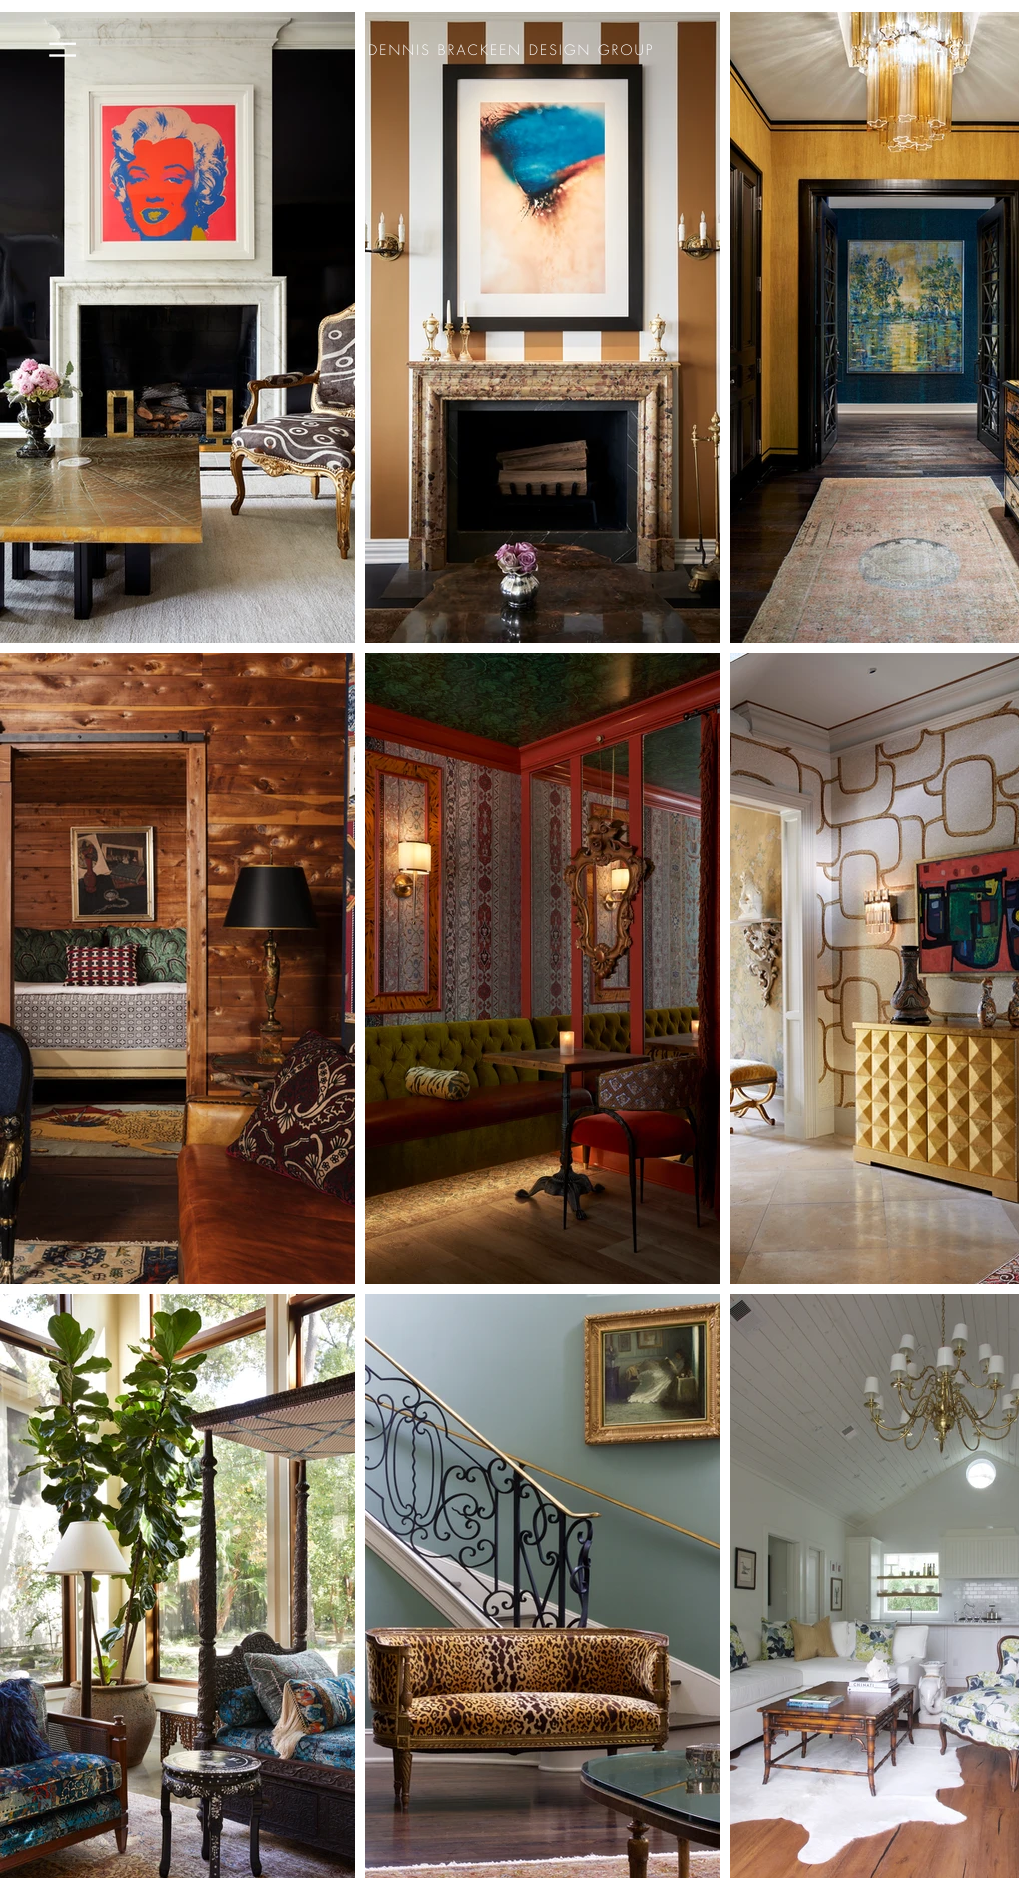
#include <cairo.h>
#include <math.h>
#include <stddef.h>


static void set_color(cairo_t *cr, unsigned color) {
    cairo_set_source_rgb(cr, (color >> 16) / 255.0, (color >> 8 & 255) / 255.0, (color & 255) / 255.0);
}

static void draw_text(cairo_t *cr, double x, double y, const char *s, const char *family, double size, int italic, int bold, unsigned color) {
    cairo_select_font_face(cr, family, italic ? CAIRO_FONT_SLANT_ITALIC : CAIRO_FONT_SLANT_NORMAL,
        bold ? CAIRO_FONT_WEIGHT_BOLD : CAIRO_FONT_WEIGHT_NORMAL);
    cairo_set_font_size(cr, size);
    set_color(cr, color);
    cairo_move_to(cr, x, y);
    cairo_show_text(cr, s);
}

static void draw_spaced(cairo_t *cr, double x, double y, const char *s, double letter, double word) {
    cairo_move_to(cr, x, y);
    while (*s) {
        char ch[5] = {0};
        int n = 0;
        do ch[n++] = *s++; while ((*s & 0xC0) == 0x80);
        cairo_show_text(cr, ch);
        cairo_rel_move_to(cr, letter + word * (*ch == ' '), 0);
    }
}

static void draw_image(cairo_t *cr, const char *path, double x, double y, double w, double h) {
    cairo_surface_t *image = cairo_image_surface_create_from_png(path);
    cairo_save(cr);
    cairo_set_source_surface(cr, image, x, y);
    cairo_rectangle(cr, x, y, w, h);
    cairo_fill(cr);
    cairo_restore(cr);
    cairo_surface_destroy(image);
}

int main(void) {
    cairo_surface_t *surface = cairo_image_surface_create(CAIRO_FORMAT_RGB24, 1019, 1878);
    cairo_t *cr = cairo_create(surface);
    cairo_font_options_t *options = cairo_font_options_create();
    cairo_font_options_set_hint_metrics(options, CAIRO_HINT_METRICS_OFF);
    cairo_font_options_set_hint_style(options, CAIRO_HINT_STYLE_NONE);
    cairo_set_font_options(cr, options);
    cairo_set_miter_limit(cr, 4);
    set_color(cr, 0xFFFFFF);
    cairo_paint(cr);
    draw_image(cr, "assets/img1.png", 0, 12, 355, 631);
    draw_image(cr, "assets/img2.png", 365, 12, 355, 631);
    draw_image(cr, "assets/img3.png", 730, 12, 289, 631);
    draw_image(cr, "assets/img4.png", 0, 653, 355, 631);
    draw_image(cr, "assets/img5.png", 365, 653, 355, 631);
    draw_image(cr, "assets/img6.png", 730, 653, 289, 631);
    draw_image(cr, "assets/img7.png", 0, 1294, 355, 584);
    draw_image(cr, "assets/img8.png", 365, 1294, 355, 584);
    draw_image(cr, "assets/img9.png", 730, 1294, 289, 584);
    draw_image(cr, "assets/img10.png", 49, 42, 27, 15);
    cairo_select_font_face(cr, "futura Light", CAIRO_FONT_SLANT_NORMAL, CAIRO_FONT_WEIGHT_NORMAL);
    cairo_set_font_size(cr, 14);
    set_color(cr, 0xFFFFFF);
    draw_spaced(cr, 368, 55, "DENNIS BRACKEEN DESIGN GROUP", 2.1, 0);
    draw_text(cr, 935, 55, "A C T", "futura", 14, 0, 0, 0xFFFFFF);
    cairo_surface_write_to_png(surface, "output.png");
    cairo_font_options_destroy(options);
    cairo_destroy(cr);
    cairo_surface_destroy(surface);
    return 0;
}
